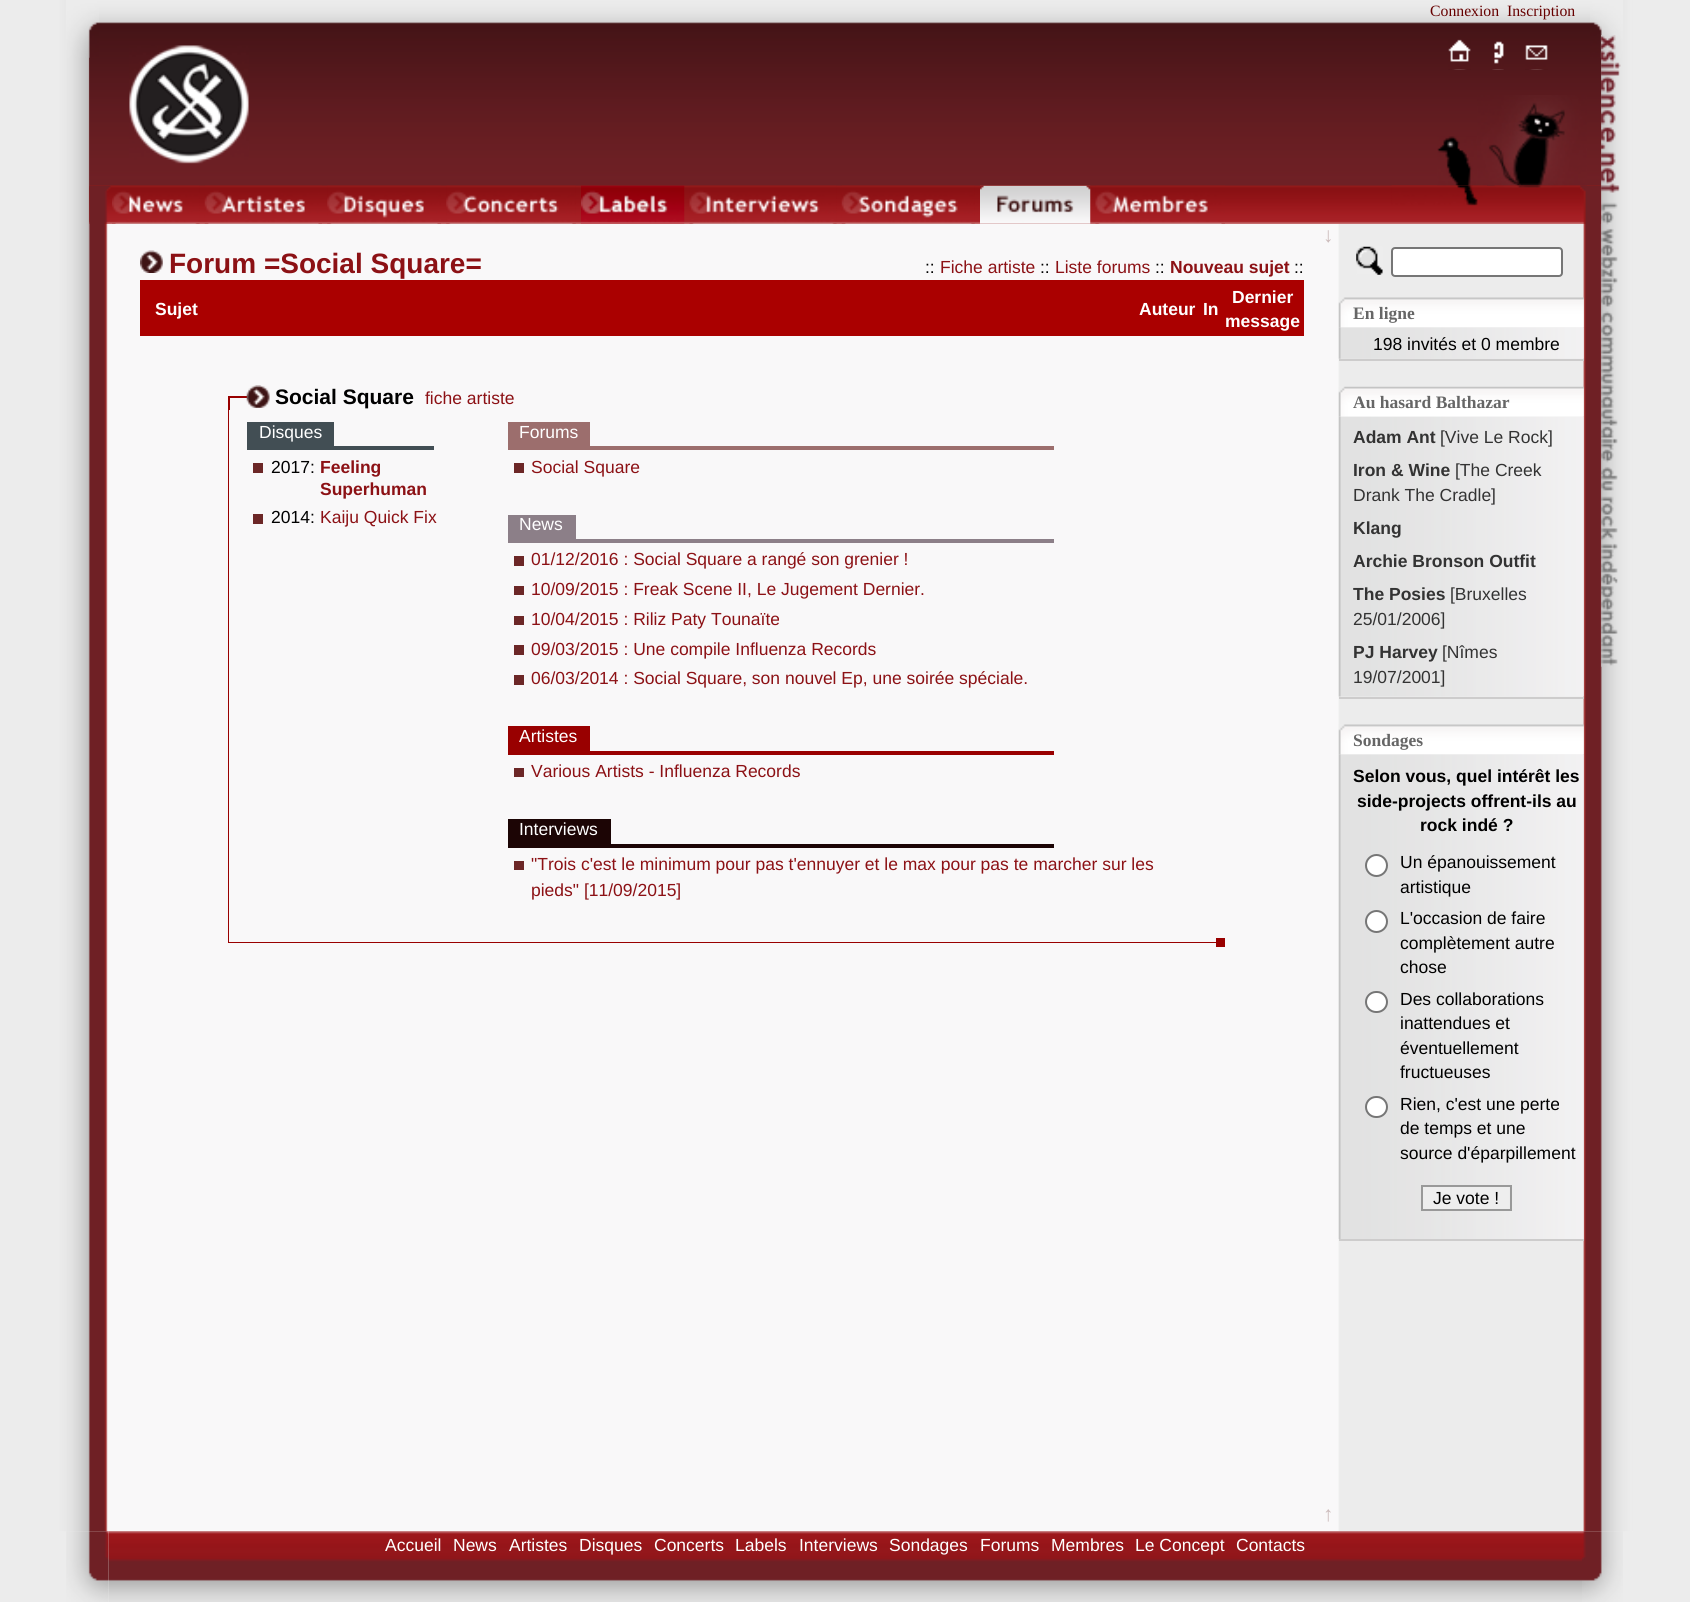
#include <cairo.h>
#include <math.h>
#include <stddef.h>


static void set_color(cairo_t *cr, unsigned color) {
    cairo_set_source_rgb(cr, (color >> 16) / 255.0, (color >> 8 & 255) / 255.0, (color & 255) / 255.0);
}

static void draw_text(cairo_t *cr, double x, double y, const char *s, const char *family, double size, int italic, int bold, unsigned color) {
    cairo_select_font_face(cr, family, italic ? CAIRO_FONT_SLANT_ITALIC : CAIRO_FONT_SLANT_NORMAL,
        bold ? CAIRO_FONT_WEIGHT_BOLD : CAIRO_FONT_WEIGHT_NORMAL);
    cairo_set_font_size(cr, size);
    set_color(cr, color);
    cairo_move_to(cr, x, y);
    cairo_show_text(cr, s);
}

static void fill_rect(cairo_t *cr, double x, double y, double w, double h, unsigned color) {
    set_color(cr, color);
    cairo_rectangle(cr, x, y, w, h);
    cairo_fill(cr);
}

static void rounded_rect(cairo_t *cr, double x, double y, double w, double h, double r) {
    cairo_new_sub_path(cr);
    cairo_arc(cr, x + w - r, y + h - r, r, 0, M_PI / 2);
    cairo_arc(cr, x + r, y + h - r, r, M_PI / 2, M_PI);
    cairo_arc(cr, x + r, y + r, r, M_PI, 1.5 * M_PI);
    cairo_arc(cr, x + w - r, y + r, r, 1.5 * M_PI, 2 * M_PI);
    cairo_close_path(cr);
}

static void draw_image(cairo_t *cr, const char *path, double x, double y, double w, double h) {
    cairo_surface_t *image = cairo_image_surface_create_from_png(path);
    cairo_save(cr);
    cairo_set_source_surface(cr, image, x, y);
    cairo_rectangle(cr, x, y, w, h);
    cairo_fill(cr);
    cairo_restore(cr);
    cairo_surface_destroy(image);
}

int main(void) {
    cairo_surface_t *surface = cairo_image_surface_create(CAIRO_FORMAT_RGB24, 1690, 1602);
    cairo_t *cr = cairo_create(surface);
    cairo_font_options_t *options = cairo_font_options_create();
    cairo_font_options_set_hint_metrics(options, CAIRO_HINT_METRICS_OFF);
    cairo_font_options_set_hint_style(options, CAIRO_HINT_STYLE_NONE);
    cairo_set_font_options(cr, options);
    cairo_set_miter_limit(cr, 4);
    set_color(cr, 0xECECEC);
    cairo_paint(cr);
    draw_image(cr, "assets/img24.png", 58, 0, 1575, 1532);
    draw_image(cr, "assets/img1.png", 89, 0, 1513, 224);
    draw_image(cr, "assets/img2.png", 66, 0, 33, 58);
    draw_text(cr, 1430, 16, "Connexion", "Liberation Serif", 15.75, 0, 0, 0x660000);
    draw_text(cr, 1507, 16, "Inscription", "Liberation Serif", 15.75, 0, 0, 0x660000);
    draw_image(cr, "assets/img3.png", 1590, 0, 33, 58);
    draw_image(cr, "assets/img4.png", 129, 45, 120, 119);
    draw_image(cr, "assets/img5.png", 1448, 39, 23, 31);
    draw_image(cr, "assets/img6.png", 1492, 41, 12, 29);
    draw_image(cr, "assets/img7.png", 1525, 45, 23, 25);
    draw_image(cr, "assets/img23.png", 1580, 185, 22, 39);
    draw_image(cr, "assets/img8.png", 1601, 35, 20, 632);
    draw_image(cr, "assets/img9.png", 1437, 136, 40, 50);
    draw_image(cr, "assets/img11.png", 1477, 95, 110, 91);
    draw_image(cr, "assets/img10.png", 1391, 185, 96, 21);
    draw_image(cr, "assets/img12.png", 1494, 185, 87, 3);
    draw_image(cr, "assets/img13.png", 89, 185, 23, 39);
    draw_image(cr, "assets/img14.png", 112, 185, 88, 39);
    draw_image(cr, "assets/img15.png", 204, 185, 118, 39);
    draw_image(cr, "assets/img16.png", 327, 185, 114, 39);
    draw_image(cr, "assets/img17.png", 446, 185, 130, 39);
    draw_image(cr, "assets/img18.png", 581, 185, 104, 39);
    draw_image(cr, "assets/img19.png", 689, 185, 148, 39);
    draw_image(cr, "assets/img20.png", 841, 185, 134, 39);
    draw_image(cr, "assets/img21.png", 980, 185, 111, 39);
    draw_image(cr, "assets/img22.png", 1095, 185, 130, 39);
    draw_text(cr, 1323, 242, "↓", "Liberation Serif", 21, 0, 0, 0xCCBBBB);
    draw_image(cr, "assets/img25.png", 140, 250, 23, 23);
    draw_text(cr, 169, 273, "Forum =Social Square=", "Liberation Sans", 28, 0, 1, 0x8C1115);
    draw_text(cr, 925, 273, "::", "Liberation Sans", 17.5, 0, 0, 0x000000);
    draw_text(cr, 940, 273, "Fiche artiste", "Liberation Sans", 17.5, 0, 0, 0x8C1115);
    draw_text(cr, 1040, 273, "::", "Liberation Sans", 17.5, 0, 0, 0x000000);
    draw_text(cr, 1055, 273, "Liste forums", "Liberation Sans", 17.5, 0, 0, 0x8C1115);
    draw_text(cr, 1155, 273, "::", "Liberation Sans", 17.5, 0, 0, 0x000000);
    draw_text(cr, 1170, 273, "Nouveau sujet", "Liberation Sans", 17.5, 0, 1, 0x8C1115);
    draw_text(cr, 1294, 273, "::", "Liberation Sans", 17.5, 0, 0, 0x000000);
    fill_rect(cr, 140, 280, 1164, 56, 0xAA0000);
    draw_text(cr, 155, 315, "Sujet", "Liberation Sans", 17.5, 0, 1, 0xFFFFFF);
    draw_text(cr, 1139, 315, "Auteur", "Liberation Sans", 17.5, 0, 1, 0xFFFFFF);
    draw_text(cr, 1203, 315, "In", "Liberation Sans", 17.5, 0, 1, 0xFFFFFF);
    draw_text(cr, 1232, 303, "Dernier", "Liberation Sans", 17.5, 0, 1, 0xFFFFFF);
    draw_text(cr, 1225, 327, "message", "Liberation Sans", 17.5, 0, 1, 0xFFFFFF);
    fill_rect(cr, 228, 396, 2, 14, 0x990000);
    fill_rect(cr, 228, 396, 19, 2, 0x990000);
    draw_image(cr, "assets/img26.png", 246, 385, 24, 23);
    draw_text(cr, 275, 404, "Social Square", "Liberation Sans", 21, 0, 1, 0x000000);
    draw_text(cr, 425, 404, "fiche artiste", "Liberation Sans", 17.5, 0, 0, 0x8C1115);
    fill_rect(cr, 228, 410, 988, 533, 0x990000);
    fill_rect(cr, 229, 410, 987, 532, 0xF9F8F9);
    fill_rect(cr, 247, 422, 87, 24, 0x424E54);
    draw_text(cr, 259, 438, "Disques", "Liberation Sans", 17.5, 0, 0, 0xFFFFFF);
    fill_rect(cr, 247, 446, 187, 4, 0x424E54);
    fill_rect(cr, 253, 463, 10, 10, 0x6C2727);
    draw_text(cr, 271, 473, "2017:", "Liberation Sans", 17.5, 0, 0, 0x000000);
    draw_text(cr, 320, 473, "Feeling", "Liberation Sans", 17.5, 0, 1, 0x8C1115);
    draw_text(cr, 320, 495, "Superhuman", "Liberation Sans", 17.5, 0, 1, 0x8C1115);
    fill_rect(cr, 253, 514, 10, 10, 0x6C2727);
    draw_text(cr, 271, 523, "2014:", "Liberation Sans", 17.5, 0, 0, 0x000000);
    draw_text(cr, 320, 523, "Kaiju Quick Fix", "Liberation Sans", 17.5, 0, 0, 0x8C1115);
    fill_rect(cr, 508, 422, 82, 24, 0x9C6E6D);
    draw_text(cr, 519, 438, "Forums", "Liberation Sans", 17.5, 0, 0, 0xFFFFFF);
    fill_rect(cr, 508, 446, 546, 4, 0x9C6E6D);
    fill_rect(cr, 514, 463, 10, 10, 0x6C2727);
    draw_text(cr, 531, 473, "Social Square", "Liberation Sans", 17.5, 0, 0, 0x8C1115);
    fill_rect(cr, 508, 515, 68, 24, 0x8C7F88);
    draw_text(cr, 519, 530, "News", "Liberation Sans", 17.5, 0, 0, 0xFFFFFF);
    fill_rect(cr, 508, 539, 546, 4, 0x8C7F88);
    fill_rect(cr, 514, 556, 10, 10, 0x6C2727);
    draw_text(cr, 531, 565, "01/12/2016 : Social Square a rangé son grenier !", "Liberation Sans", 17.5, 0, 0, 0x8C1115);
    fill_rect(cr, 514, 586, 10, 9, 0x6C2727);
    draw_text(cr, 531, 595, "10/09/2015 : Freak Scene II, Le Jugement Dernier.", "Liberation Sans", 17.5, 0, 0, 0x8C1115);
    fill_rect(cr, 514, 616, 10, 9, 0x6C2727);
    draw_text(cr, 531, 625, "10/04/2015 : Riliz Paty Tounaïte", "Liberation Sans", 17.5, 0, 0, 0x8C1115);
    fill_rect(cr, 514, 645, 10, 10, 0x6C2727);
    draw_text(cr, 531, 655, "09/03/2015 : Une compile Influenza Records", "Liberation Sans", 17.5, 0, 0, 0x8C1115);
    fill_rect(cr, 514, 675, 10, 10, 0x6C2727);
    draw_text(cr, 531, 684, "06/03/2014 : Social Square, son nouvel Ep, une soirée spéciale.", "Liberation Sans", 17.5, 0, 0, 0x8C1115);
    fill_rect(cr, 508, 726, 82, 25, 0x990000);
    draw_text(cr, 519, 742, "Artistes", "Liberation Sans", 17.5, 0, 0, 0xFFFFFF);
    fill_rect(cr, 508, 751, 546, 4, 0x990000);
    fill_rect(cr, 514, 768, 10, 9, 0x6C2727);
    draw_text(cr, 531, 777, "Various Artists - Influenza Records", "Liberation Sans", 17.5, 0, 0, 0x8C1115);
    fill_rect(cr, 508, 819, 103, 25, 0x1C0505);
    draw_text(cr, 519, 835, "Interviews", "Liberation Sans", 17.5, 0, 0, 0xFFFFFF);
    fill_rect(cr, 508, 844, 546, 4, 0x1C0505);
    fill_rect(cr, 514, 861, 10, 9, 0x6C2727);
    draw_text(cr, 531, 870, "\"Trois c'est le minimum pour pas t'ennuyer et le max pour pas te marcher sur les", "Liberation Sans", 17.5, 0, 0, 0x8C1115);
    draw_text(cr, 531, 896, "pieds\" [11/09/2015]", "Liberation Sans", 17.5, 0, 0, 0x8C1115);
    fill_rect(cr, 1216, 938, 9, 9, 0x990000);
    draw_image(cr, "assets/img27.png", 1356, 246, 27, 29);
    set_color(cr, 0xFFFFFF);
    rounded_rect(cr, 1392, 248, 170, 28, 3);
    cairo_fill_preserve(cr);
    set_color(cr, 0x767676);
    cairo_stroke(cr);
    draw_image(cr, "assets/img29.png", 1338, 327, 246, 32);
    draw_image(cr, "assets/img28.png", 1338, 297, 246, 31);
    draw_text(cr, 1353, 319, "En ligne", "Liberation Serif", 17.5, 0, 1, 0x666666);
    draw_text(cr, 1373, 350, "198 invités et 0 membre", "Liberation Sans", 17.5, 0, 0, 0x000000);
    fill_rect(cr, 1339, 359, 245, 2, 0xCDCCCC);
    draw_image(cr, "assets/img31.png", 1338, 416, 246, 281);
    draw_image(cr, "assets/img30.png", 1338, 386, 246, 31);
    draw_text(cr, 1353, 408, "Au hasard Balthazar", "Liberation Serif", 17.5, 0, 1, 0x666666);
    draw_text(cr, 1353, 443, "Adam Ant", "Liberation Sans", 17.5, 0, 1, 0x333333);
    draw_text(cr, 1440, 443, "[Vive Le Rock]", "Liberation Sans", 17.5, 0, 0, 0x333333);
    draw_text(cr, 1353, 476, "Iron & Wine", "Liberation Sans", 17.5, 0, 1, 0x333333);
    draw_text(cr, 1455, 476, "[The Creek", "Liberation Sans", 17.5, 0, 0, 0x333333);
    draw_text(cr, 1353, 501, "Drank The Cradle]", "Liberation Sans", 17.5, 0, 0, 0x333333);
    draw_text(cr, 1353, 534, "Klang", "Liberation Sans", 17.5, 0, 1, 0x333333);
    draw_text(cr, 1353, 567, "Archie Bronson Outfit", "Liberation Sans", 17.5, 0, 1, 0x333333);
    draw_text(cr, 1353, 600, "The Posies", "Liberation Sans", 17.5, 0, 1, 0x333333);
    draw_text(cr, 1450, 600, "[Bruxelles", "Liberation Sans", 17.5, 0, 0, 0x333333);
    draw_text(cr, 1353, 625, "25/01/2006]", "Liberation Sans", 17.5, 0, 0, 0x333333);
    draw_text(cr, 1353, 658, "PJ Harvey", "Liberation Sans", 17.5, 0, 1, 0x333333);
    draw_text(cr, 1442, 658, "[Nîmes", "Liberation Sans", 17.5, 0, 0, 0x333333);
    draw_text(cr, 1353, 683, "19/07/2001]", "Liberation Sans", 17.5, 0, 0, 0x333333);
    fill_rect(cr, 1339, 697, 245, 2, 0xCDCCCC);
    draw_image(cr, "assets/img32.png", 1338, 754, 246, 485);
    draw_image(cr, "assets/img28.png", 1338, 724, 246, 31);
    draw_text(cr, 1353, 746, "Sondages", "Liberation Serif", 17.5, 0, 1, 0x666666);
    draw_text(cr, 1353, 782, "Selon vous, quel intérêt les", "Liberation Sans", 17.5, 0, 1, 0x000000);
    draw_text(cr, 1357, 807, "side-projects offrent-ils au", "Liberation Sans", 17.5, 0, 1, 0x000000);
    draw_text(cr, 1420, 831, "rock indé ?", "Liberation Sans", 17.5, 0, 1, 0x000000);
    set_color(cr, 0xFFFFFF);
    cairo_new_path(cr);
    cairo_arc(cr, 1376.5, 865.5, 10.5, 0, 2 * M_PI);
    cairo_fill_preserve(cr);
    set_color(cr, 0x767676);
    cairo_stroke(cr);
    draw_text(cr, 1400, 868, "Un épanouissement", "Liberation Sans", 17.5, 0, 0, 0x000000);
    draw_text(cr, 1400, 893, "artistique", "Liberation Sans", 17.5, 0, 0, 0x000000);
    set_color(cr, 0xFFFFFF);
    cairo_new_path(cr);
    cairo_arc(cr, 1376.5, 921.5, 10.5, 0, 2 * M_PI);
    cairo_fill_preserve(cr);
    set_color(cr, 0x767676);
    cairo_stroke(cr);
    draw_text(cr, 1400, 924, "L'occasion de faire", "Liberation Sans", 17.5, 0, 0, 0x000000);
    draw_text(cr, 1400, 949, "complètement autre", "Liberation Sans", 17.5, 0, 0, 0x000000);
    draw_text(cr, 1400, 973, "chose", "Liberation Sans", 17.5, 0, 0, 0x000000);
    set_color(cr, 0xFFFFFF);
    rounded_rect(cr, 1366, 992, 21, 20, 10);
    cairo_fill_preserve(cr);
    set_color(cr, 0x767676);
    cairo_stroke(cr);
    draw_text(cr, 1400, 1005, "Des collaborations", "Liberation Sans", 17.5, 0, 0, 0x000000);
    draw_text(cr, 1400, 1029, "inattendues et", "Liberation Sans", 17.5, 0, 0, 0x000000);
    draw_text(cr, 1400, 1054, "éventuellement", "Liberation Sans", 17.5, 0, 0, 0x000000);
    draw_text(cr, 1400, 1078, "fructueuses", "Liberation Sans", 17.5, 0, 0, 0x000000);
    set_color(cr, 0xFFFFFF);
    rounded_rect(cr, 1366, 1097, 21, 20, 10);
    cairo_fill_preserve(cr);
    set_color(cr, 0x767676);
    cairo_stroke(cr);
    draw_text(cr, 1400, 1110, "Rien, c'est une perte", "Liberation Sans", 17.5, 0, 0, 0x000000);
    draw_text(cr, 1400, 1134, "de temps et une", "Liberation Sans", 17.5, 0, 0, 0x000000);
    draw_text(cr, 1400, 1159, "source d'éparpillement", "Liberation Sans", 17.5, 0, 0, 0x000000);
    fill_rect(cr, 1423, 1187, 86, 22, 0xEEEEEE);
    cairo_rectangle(cr, 1422, 1186, 89, 24);
    set_color(cr, 0x999999);
    cairo_stroke(cr);
    draw_text(cr, 1433, 1204, "Je vote !", "Liberation Sans", 17.5, 0, 0, 0x000000);
    fill_rect(cr, 1339, 1239, 245, 2, 0xCDCCCC);
    draw_text(cr, 1323, 1521, "↑", "Liberation Serif", 21, 0, 0, 0xCCBBBB);
    draw_image(cr, "assets/img33.png", 66, 1531, 43, 71);
    draw_image(cr, "assets/img34.png", 108, 1531, 1474, 71);
    draw_text(cr, 385, 1551, "Accueil", "Liberation Sans", 17.5, 0, 0, 0xFFFFFF);
    draw_text(cr, 453, 1551, "News", "Liberation Sans", 17.5, 0, 0, 0xFFFFFF);
    draw_text(cr, 509, 1551, "Artistes", "Liberation Sans", 17.5, 0, 0, 0xFFFFFF);
    draw_text(cr, 579, 1551, "Disques", "Liberation Sans", 17.5, 0, 0, 0xFFFFFF);
    draw_text(cr, 654, 1551, "Concerts", "Liberation Sans", 17.5, 0, 0, 0xFFFFFF);
    draw_text(cr, 735, 1551, "Labels", "Liberation Sans", 17.5, 0, 0, 0xFFFFFF);
    draw_text(cr, 799, 1551, "Interviews", "Liberation Sans", 17.5, 0, 0, 0xFFFFFF);
    draw_text(cr, 889, 1551, "Sondages", "Liberation Sans", 17.5, 0, 0, 0xFFFFFF);
    draw_text(cr, 980, 1551, "Forums", "Liberation Sans", 17.5, 0, 0, 0xFFFFFF);
    draw_text(cr, 1051, 1551, "Membres", "Liberation Sans", 17.5, 0, 0, 0xFFFFFF);
    draw_text(cr, 1135, 1551, "Le Concept", "Liberation Sans", 17.5, 0, 0, 0xFFFFFF);
    draw_text(cr, 1236, 1551, "Contacts", "Liberation Sans", 17.5, 0, 0, 0xFFFFFF);
    draw_image(cr, "assets/img35.png", 1582, 1531, 41, 71);
    cairo_surface_write_to_png(surface, "output.png");
    cairo_font_options_destroy(options);
    cairo_destroy(cr);
    cairo_surface_destroy(surface);
    return 0;
}
